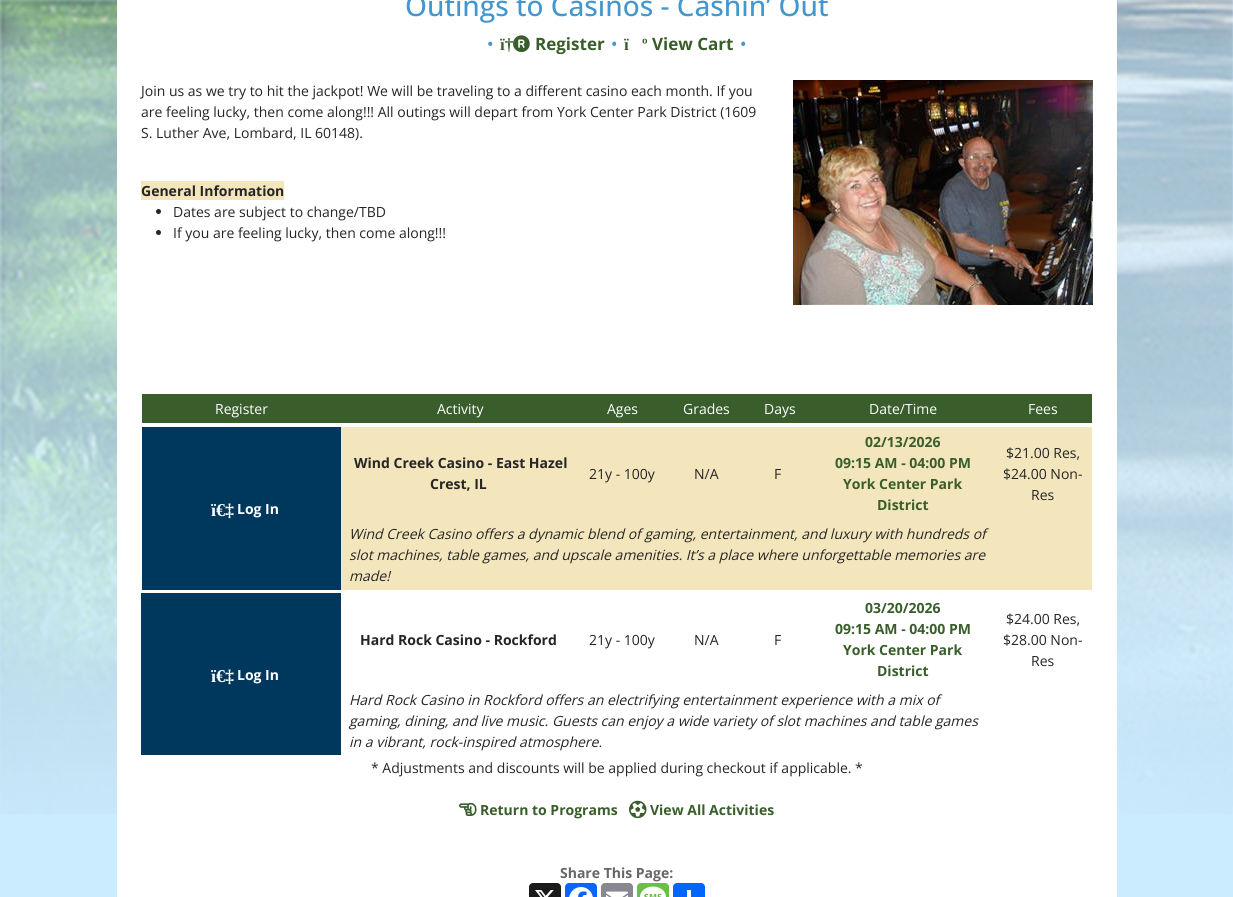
#include <cairo.h>
#include <math.h>
#include <stddef.h>


static void set_color(cairo_t *cr, unsigned color) {
    cairo_set_source_rgb(cr, (color >> 16) / 255.0, (color >> 8 & 255) / 255.0, (color & 255) / 255.0);
}

static void draw_text(cairo_t *cr, double x, double y, const char *s, const char *family, double size, int italic, int bold, unsigned color) {
    cairo_select_font_face(cr, family, italic ? CAIRO_FONT_SLANT_ITALIC : CAIRO_FONT_SLANT_NORMAL,
        bold ? CAIRO_FONT_WEIGHT_BOLD : CAIRO_FONT_WEIGHT_NORMAL);
    cairo_set_font_size(cr, size);
    set_color(cr, color);
    cairo_move_to(cr, x, y);
    cairo_show_text(cr, s);
}

static void fill_rect(cairo_t *cr, double x, double y, double w, double h, unsigned color) {
    set_color(cr, color);
    cairo_rectangle(cr, x, y, w, h);
    cairo_fill(cr);
}

static void rounded_rect(cairo_t *cr, double x, double y, double w, double h, double r) {
    cairo_new_sub_path(cr);
    cairo_arc(cr, x + w - r, y + h - r, r, 0, M_PI / 2);
    cairo_arc(cr, x + r, y + h - r, r, M_PI / 2, M_PI);
    cairo_arc(cr, x + r, y + r, r, M_PI, 1.5 * M_PI);
    cairo_arc(cr, x + w - r, y + r, r, 1.5 * M_PI, 2 * M_PI);
    cairo_close_path(cr);
}

static void draw_image(cairo_t *cr, const char *path, double x, double y, double w, double h) {
    cairo_surface_t *image = cairo_image_surface_create_from_png(path);
    cairo_save(cr);
    cairo_set_source_surface(cr, image, x, y);
    cairo_rectangle(cr, x, y, w, h);
    cairo_fill(cr);
    cairo_restore(cr);
    cairo_surface_destroy(image);
}

int main(void) {
    cairo_surface_t *surface = cairo_image_surface_create(CAIRO_FORMAT_RGB24, 1233, 897);
    cairo_t *cr = cairo_create(surface);
    cairo_font_options_t *options = cairo_font_options_create();
    cairo_font_options_set_hint_metrics(options, CAIRO_HINT_METRICS_OFF);
    cairo_font_options_set_hint_style(options, CAIRO_HINT_STYLE_NONE);
    cairo_set_font_options(cr, options);
    cairo_set_miter_limit(cr, 4);
    set_color(cr, 0xCBEBFF);
    cairo_paint(cr);
    draw_image(cr, "assets/img1.png", 0, 0, 1233, 814);
    fill_rect(cr, 117, 0, 1000, 897, 0xFFFFFF);
    draw_text(cr, 405, 16, "Outings to Casinos - Cashin’ Out", "Open Sans Medium", 28, 0, 0, 0x4497CE);
    draw_text(cr, 487, 50, "•", "Open Sans Medium", 17, 0, 0, 0x4497CE);
    draw_image(cr, "assets/img2.png", 513, 35, 17, 18);
    draw_text(cr, 500, 50, "ï†", "Liberation Serif", 17, 0, 1, 0x395E2C);
    draw_text(cr, 535, 50, "Register", "Open Sans", 17, 0, 1, 0x395E2C);
    draw_text(cr, 611, 50, "•", "Open Sans Medium", 17, 0, 0, 0x4497CE);
    draw_text(cr, 624, 50, "ï", "Liberation Serif", 17, 0, 1, 0x395E2C);
    draw_text(cr, 642, 50, "º", "Liberation Serif", 17, 0, 1, 0x395E2C);
    draw_text(cr, 652, 50, "View Cart", "Open Sans", 17, 0, 1, 0x395E2C);
    draw_text(cr, 740, 50, "•", "Open Sans Medium", 17, 0, 0, 0x4497CE);
    draw_text(cr, 141, 96, "Join us as we try to hit the jackpot! We will be traveling to a different casino each month. If you", "Open Sans", 14, 0, 0, 0x252525);
    draw_text(cr, 141, 117, "are feeling lucky, then come along!!! All outings will depart from York Center Park District (1609", "Open Sans", 14, 0, 0, 0x252525);
    draw_text(cr, 141, 138, "S. Luther Ave, Lombard, IL 60148).", "Open Sans", 14, 0, 0, 0x252525);
    draw_image(cr, "assets/img3.png", 793, 80, 300, 225);
    fill_rect(cr, 141, 181, 143, 19, 0xF4E6BC);
    draw_text(cr, 141, 196, "General Information", "Open Sans", 14, 0, 1, 0x252525);
    cairo_new_path(cr);
    cairo_arc(cr, 158.5, 211.5, 2.5, 0, 2 * M_PI);
    cairo_fill(cr);
    draw_text(cr, 173, 217, "Dates are subject to change/TBD", "Open Sans", 14, 0, 0, 0x252525);
    cairo_new_path(cr);
    cairo_arc(cr, 158.5, 232.5, 2.5, 0, 2 * M_PI);
    cairo_fill(cr);
    draw_text(cr, 173, 238, "If you are feeling lucky, then come along!!!", "Open Sans", 14, 0, 0, 0x252525);
    fill_rect(cr, 142, 394, 950, 29, 0x395E2C);
    draw_text(cr, 215, 414, "Register", "Open Sans", 14, 0, 0, 0xFFFFFF);
    draw_text(cr, 437, 414, "Activity", "Open Sans", 14, 0, 0, 0xFFFFFF);
    draw_text(cr, 607, 414, "Ages", "Open Sans", 14, 0, 0, 0xFFFFFF);
    draw_text(cr, 683, 414, "Grades", "Open Sans", 14, 0, 0, 0xFFFFFF);
    draw_text(cr, 764, 414, "Days", "Open Sans", 14, 0, 0, 0xFFFFFF);
    draw_text(cr, 869, 414, "Date/Time", "Open Sans", 14, 0, 0, 0xFFFFFF);
    draw_text(cr, 1028, 414, "Fees", "Open Sans", 14, 0, 0, 0xFFFFFF);
    fill_rect(cr, 341, 427, 751, 92, 0xF4E6BC);
    draw_text(cr, 354, 468, "Wind Creek Casino - East Hazel", "Open Sans", 14, 0, 1, 0x252525);
    draw_text(cr, 430, 489, "Crest, IL", "Open Sans", 14, 0, 1, 0x252525);
    draw_text(cr, 589, 479, "21y - 100y", "Open Sans", 14, 0, 0, 0x252525);
    draw_text(cr, 694, 479, "N/A", "Open Sans", 14, 0, 0, 0x252525);
    draw_text(cr, 774, 479, "F", "Open Sans", 14, 0, 0, 0x252525);
    draw_text(cr, 865, 447, "02/13/2026", "Open Sans", 14, 0, 1, 0x395E2C);
    draw_text(cr, 835, 468, "09:15 AM - 04:00 PM", "Open Sans", 14, 0, 1, 0x395E2C);
    draw_text(cr, 843, 489, "York Center Park", "Open Sans", 14, 0, 1, 0x395E2C);
    draw_text(cr, 877, 510, "District", "Open Sans", 14, 0, 1, 0x395E2C);
    draw_text(cr, 1006, 458, "$21.00 Res,", "Open Sans", 14, 0, 0, 0x252525);
    draw_text(cr, 1003, 479, "$24.00 Non-", "Open Sans", 14, 0, 0, 0x252525);
    draw_text(cr, 1031, 500, "Res", "Open Sans", 14, 0, 0, 0x252525);
    fill_rect(cr, 142, 427, 199, 163, 0x00375C);
    draw_text(cr, 211, 516, "ï€‡", "Liberation Serif", 18, 0, 1, 0xFFFFFF);
    draw_text(cr, 237, 514, "Log In", "Open Sans", 14, 0, 1, 0xFFFFFF);
    fill_rect(cr, 341, 519, 751, 71, 0xF4E6BC);
    draw_text(cr, 349, 539, "Wind Creek Casino offers a dynamic blend of gaming, entertainment, and luxury with hundreds of", "Open Sans", 14, 1, 0, 0x252525);
    draw_text(cr, 349, 560, "slot machines, table games, and upscale amenities. It’s a place where unforgettable memories are", "Open Sans", 14, 1, 0, 0x252525);
    draw_text(cr, 349, 581, "made!", "Open Sans", 14, 1, 0, 0x252525);
    draw_text(cr, 360, 645, "Hard Rock Casino - Rockford", "Open Sans", 14, 0, 1, 0x252525);
    draw_text(cr, 589, 645, "21y - 100y", "Open Sans", 14, 0, 0, 0x252525);
    draw_text(cr, 694, 645, "N/A", "Open Sans", 14, 0, 0, 0x252525);
    draw_text(cr, 774, 645, "F", "Open Sans", 14, 0, 0, 0x252525);
    draw_text(cr, 865, 613, "03/20/2026", "Open Sans", 14, 0, 1, 0x395E2C);
    draw_text(cr, 835, 634, "09:15 AM - 04:00 PM", "Open Sans", 14, 0, 1, 0x395E2C);
    draw_text(cr, 843, 655, "York Center Park", "Open Sans", 14, 0, 1, 0x395E2C);
    draw_text(cr, 877, 676, "District", "Open Sans", 14, 0, 1, 0x395E2C);
    draw_text(cr, 1006, 624, "$24.00 Res,", "Open Sans", 14, 0, 0, 0x252525);
    draw_text(cr, 1003, 645, "$28.00 Non-", "Open Sans", 14, 0, 0, 0x252525);
    draw_text(cr, 1031, 666, "Res", "Open Sans", 14, 0, 0, 0x252525);
    fill_rect(cr, 141, 593, 200, 162, 0x00375C);
    draw_text(cr, 211, 682, "ï€‡", "Liberation Serif", 18, 0, 1, 0xFFFFFF);
    draw_text(cr, 237, 680, "Log In", "Open Sans", 14, 0, 1, 0xFFFFFF);
    draw_text(cr, 349, 705, "Hard Rock Casino in Rockford offers an electrifying entertainment experience with a mix of", "Open Sans", 14, 1, 0, 0x252525);
    draw_text(cr, 349, 726, "gaming, dining, and live music. Guests can enjoy a wide variety of slot machines and table games", "Open Sans", 14, 1, 0, 0x252525);
    draw_text(cr, 349, 747, "in a vibrant, rock-inspired atmosphere.", "Open Sans", 14, 1, 0, 0x252525);
    draw_text(cr, 371, 773, "* Adjustments and discounts will be applied during checkout if applicable. *", "Open Sans", 14, 0, 0, 0x252525);
    draw_image(cr, "assets/img4.png", 459, 802, 18, 14);
    draw_text(cr, 480, 815, "Return to Programs", "Open Sans", 14, 0, 1, 0x395E2C);
    draw_image(cr, "assets/img5.png", 629, 800, 18, 19);
    draw_text(cr, 650, 815, "View All Activities", "Open Sans", 14, 0, 1, 0x395E2C);
    draw_text(cr, 560, 878, "Share This Page:", "Open Sans", 14, 0, 1, 0x666666);
    set_color(cr, 0x1A1A1A);
    rounded_rect(cr, 529, 883, 32, 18, 4);
    cairo_fill(cr);
    draw_image(cr, "assets/img6.png", 535, 890, 19, 7);
    set_color(cr, 0x0866FF);
    rounded_rect(cr, 565, 883, 32, 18, 4);
    cairo_fill(cr);
    draw_image(cr, "assets/img7.png", 569, 887, 24, 10);
    set_color(cr, 0x888990);
    rounded_rect(cr, 601, 883, 32, 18, 4);
    cairo_fill(cr);
    draw_image(cr, "assets/img8.png", 606, 891, 22, 6);
    set_color(cr, 0x6CBE45);
    rounded_rect(cr, 637, 883, 32, 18, 4);
    cairo_fill(cr);
    draw_image(cr, "assets/img9.png", 640, 886, 26, 11);
    set_color(cr, 0x0166FF);
    rounded_rect(cr, 673, 883, 32, 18, 4);
    cairo_fill(cr);
    fill_rect(cr, 687, 890, 4, 7, 0xFFFFFF);
    cairo_surface_write_to_png(surface, "output.png");
    cairo_font_options_destroy(options);
    cairo_destroy(cr);
    cairo_surface_destroy(surface);
    return 0;
}
